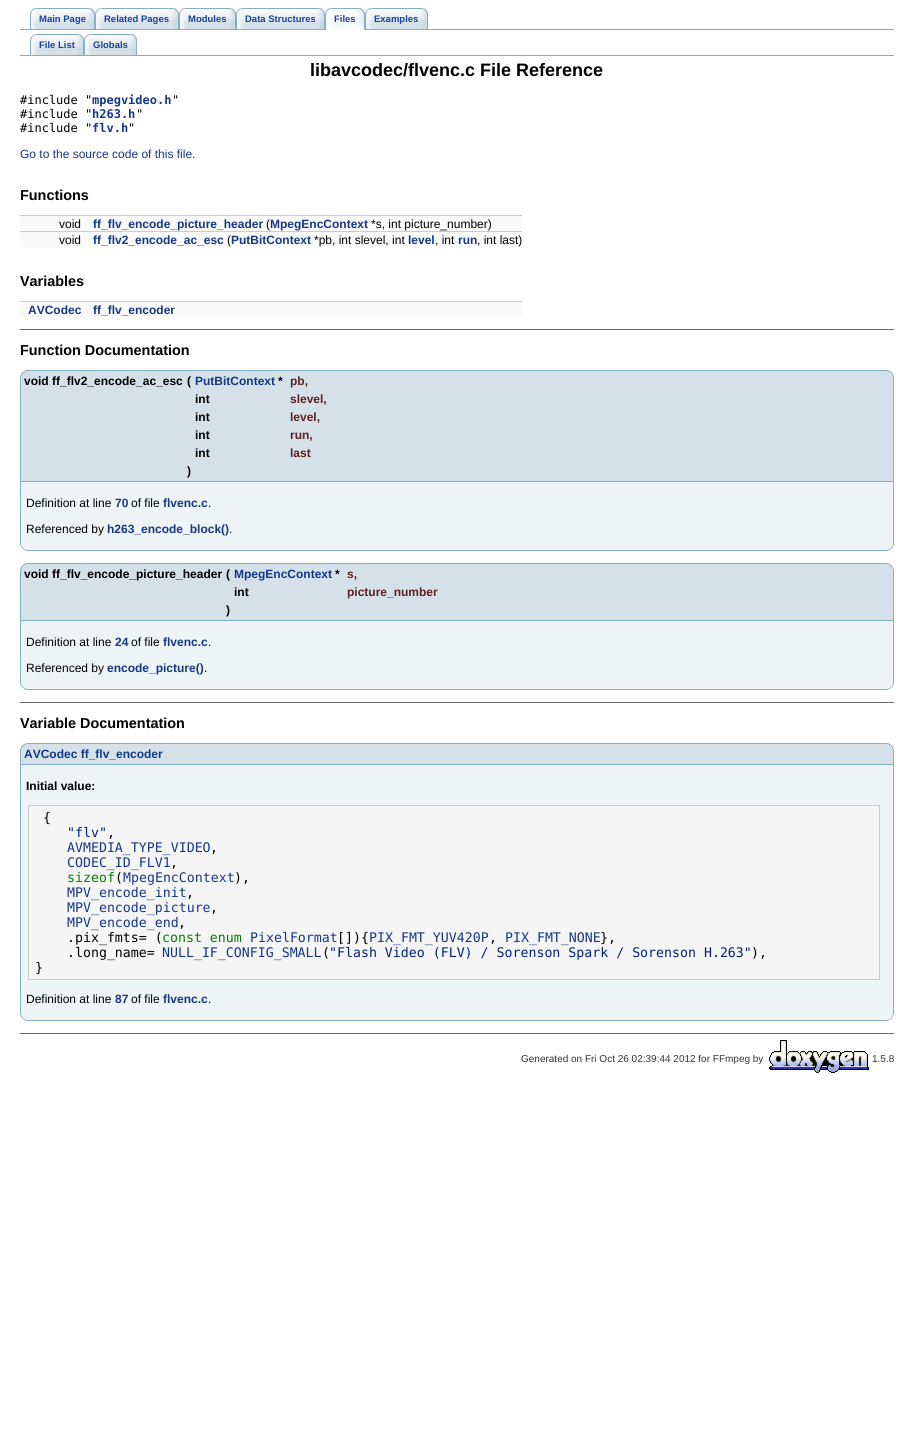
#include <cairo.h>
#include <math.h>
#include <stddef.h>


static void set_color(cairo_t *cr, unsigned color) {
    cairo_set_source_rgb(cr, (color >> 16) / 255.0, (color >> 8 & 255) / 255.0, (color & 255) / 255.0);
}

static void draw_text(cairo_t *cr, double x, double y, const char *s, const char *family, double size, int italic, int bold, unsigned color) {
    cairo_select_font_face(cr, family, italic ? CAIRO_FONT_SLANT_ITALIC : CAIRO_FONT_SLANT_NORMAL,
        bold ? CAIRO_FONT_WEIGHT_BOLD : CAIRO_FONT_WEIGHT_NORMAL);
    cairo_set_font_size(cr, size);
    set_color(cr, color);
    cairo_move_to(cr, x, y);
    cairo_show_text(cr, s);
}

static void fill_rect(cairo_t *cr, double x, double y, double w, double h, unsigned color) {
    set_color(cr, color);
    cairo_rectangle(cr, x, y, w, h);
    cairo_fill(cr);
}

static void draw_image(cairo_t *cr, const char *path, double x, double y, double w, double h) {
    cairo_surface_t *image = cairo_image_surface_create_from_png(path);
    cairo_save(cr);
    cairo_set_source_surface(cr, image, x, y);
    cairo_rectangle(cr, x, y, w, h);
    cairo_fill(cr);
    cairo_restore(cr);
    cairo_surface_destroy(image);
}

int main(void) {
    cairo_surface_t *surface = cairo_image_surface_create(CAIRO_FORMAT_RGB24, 914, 1451);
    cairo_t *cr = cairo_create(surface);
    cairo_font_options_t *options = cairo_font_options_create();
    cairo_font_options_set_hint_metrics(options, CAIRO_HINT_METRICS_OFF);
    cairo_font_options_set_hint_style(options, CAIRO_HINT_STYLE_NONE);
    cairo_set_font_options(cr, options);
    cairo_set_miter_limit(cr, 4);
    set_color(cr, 0xFFFFFF);
    cairo_paint(cr);
    fill_rect(cr, 20, 29, 874, 1, 0x84B0C7);
    draw_image(cr, "assets/img1.png", 39, 8, 56, 21);
    draw_image(cr, "assets/img2.png", 30, 8, 9, 21);
    draw_text(cr, 39, 22, "Main Page", "Liberation Sans", 9.5, 0, 1, 0x1A419D);
    draw_image(cr, "assets/img3.png", 104, 8, 75, 21);
    draw_image(cr, "assets/img2.png", 95, 8, 9, 21);
    draw_text(cr, 104, 22, "Related Pages", "Liberation Sans", 9.5, 0, 1, 0x1A419D);
    draw_image(cr, "assets/img4.png", 188, 8, 48, 21);
    draw_image(cr, "assets/img2.png", 179, 8, 9, 21);
    draw_text(cr, 188, 22, "Modules", "Liberation Sans", 9.5, 0, 1, 0x1A419D);
    draw_image(cr, "assets/img5.png", 245, 8, 80, 21);
    draw_image(cr, "assets/img2.png", 236, 8, 9, 21);
    draw_text(cr, 245, 22, "Data Structures", "Liberation Sans", 9.5, 0, 1, 0x1A419D);
    draw_image(cr, "assets/img6.png", 332, 8, 33, 22);
    draw_image(cr, "assets/img7.png", 325, 8, 7, 22);
    draw_text(cr, 334, 22, "Files", "Liberation Sans", 9.5, 0, 1, 0x1A419D);
    draw_image(cr, "assets/img8.png", 374, 8, 54, 21);
    draw_image(cr, "assets/img2.png", 365, 8, 9, 21);
    draw_text(cr, 374, 22, "Examples", "Liberation Sans", 9.5, 0, 1, 0x1A419D);
    fill_rect(cr, 20, 55, 874, 1, 0x84B0C7);
    draw_image(cr, "assets/img9.png", 39, 34, 45, 21);
    draw_image(cr, "assets/img2.png", 30, 34, 9, 21);
    draw_text(cr, 39, 48, "File List", "Liberation Sans", 9.5, 0, 1, 0x1A419D);
    draw_image(cr, "assets/img10.png", 93, 34, 44, 21);
    draw_image(cr, "assets/img2.png", 84, 34, 9, 21);
    draw_text(cr, 93, 48, "Globals", "Liberation Sans", 9.5, 0, 1, 0x1A419D);
    draw_text(cr, 310, 76, "libavcodec/flvenc.c File Reference", "Liberation Sans", 18, 0, 1, 0x000000);
    draw_text(cr, 20, 104, "#include \"", "DejaVu Sans Mono", 12, 0, 0, 0x000000);
    draw_text(cr, 92, 104, "mpegvideo.h", "DejaVu Sans Mono", 12, 0, 1, 0x153788);
    draw_text(cr, 172, 104, "\"", "DejaVu Sans Mono", 12, 0, 0, 0x000000);
    draw_text(cr, 20, 118, "#include \"", "DejaVu Sans Mono", 12, 0, 0, 0x000000);
    draw_text(cr, 92, 118, "h263.h", "DejaVu Sans Mono", 12, 0, 1, 0x153788);
    draw_text(cr, 136, 118, "\"", "DejaVu Sans Mono", 12, 0, 0, 0x000000);
    draw_text(cr, 20, 132, "#include \"", "DejaVu Sans Mono", 12, 0, 0, 0x000000);
    draw_text(cr, 92, 132, "flv.h", "DejaVu Sans Mono", 12, 0, 1, 0x153788);
    draw_text(cr, 128, 132, "\"", "DejaVu Sans Mono", 12, 0, 0, 0x000000);
    draw_text(cr, 20, 158, "Go to the source code of this file.", "Liberation Sans", 12, 0, 0, 0x153788);
    draw_text(cr, 20, 200, "Functions", "Liberation Sans", 14.4, 0, 1, 0x000000);
    fill_rect(cr, 20, 216, 502, 15, 0xFAFAFA);
    fill_rect(cr, 20, 215, 502, 1, 0xCCCCCC);
    draw_text(cr, 59, 228, "void", "Liberation Sans", 12, 0, 0, 0x000000);
    draw_text(cr, 93, 228, "ff_flv_encode_picture_header", "Liberation Sans", 12, 0, 1, 0x153788);
    draw_text(cr, 266, 228, "(", "Liberation Sans", 12, 0, 0, 0x000000);
    draw_text(cr, 270, 228, "MpegEncContext", "Liberation Sans", 12, 0, 1, 0x153788);
    draw_text(cr, 371, 228, "*s, int picture_number)", "Liberation Sans", 12, 0, 0, 0x000000);
    fill_rect(cr, 20, 232, 502, 15, 0xFAFAFA);
    fill_rect(cr, 20, 231, 502, 1, 0xCCCCCC);
    draw_text(cr, 59, 244, "void", "Liberation Sans", 12, 0, 0, 0x000000);
    draw_text(cr, 93, 244, "ff_flv2_encode_ac_esc", "Liberation Sans", 12, 0, 1, 0x153788);
    draw_text(cr, 227, 244, "(", "Liberation Sans", 12, 0, 0, 0x000000);
    draw_text(cr, 231, 244, "PutBitContext", "Liberation Sans", 12, 0, 1, 0x153788);
    draw_text(cr, 314, 244, "*pb, int slevel, int", "Liberation Sans", 12, 0, 0, 0x000000);
    draw_text(cr, 408, 244, "level", "Liberation Sans", 12, 0, 1, 0x153788);
    draw_text(cr, 435, 244, ", int", "Liberation Sans", 12, 0, 0, 0x000000);
    draw_text(cr, 458, 244, "run", "Liberation Sans", 12, 0, 1, 0x153788);
    draw_text(cr, 477, 244, ", int last)", "Liberation Sans", 12, 0, 0, 0x000000);
    draw_text(cr, 20, 286, "Variables", "Liberation Sans", 14.4, 0, 1, 0x000000);
    fill_rect(cr, 20, 302, 502, 15, 0xFAFAFA);
    fill_rect(cr, 20, 301, 502, 1, 0xCCCCCC);
    draw_text(cr, 28, 314, "AVCodec", "Liberation Sans", 12, 0, 1, 0x153788);
    draw_text(cr, 93, 314, "ff_flv_encoder", "Liberation Sans", 12, 0, 1, 0x153788);
    fill_rect(cr, 20, 329, 874, 1, 0x666666);
    draw_text(cr, 20, 355, "Function Documentation", "Liberation Sans", 14.4, 0, 1, 0x000000);
    set_color(cr, 0xD5E1E8);
    cairo_new_path(cr);
    cairo_move_to(cr, 28, 370.5);
    cairo_line_to(cr, 886, 370.5);
    cairo_curve_to(cr, 890, 370.5, 893.5, 374, 893.5, 378);
    cairo_line_to(cr, 893.5, 481.5);
    cairo_line_to(cr, 20.5, 481.5);
    cairo_line_to(cr, 20.5, 378);
    cairo_curve_to(cr, 20.5, 374, 24, 370.5, 28, 370.5);
    cairo_close_path(cr);
    cairo_fill_preserve(cr);
    set_color(cr, 0x84B0C7);
    cairo_set_line_width(cr, 1);
    cairo_stroke(cr);
    draw_text(cr, 24, 385, "void ff_flv2_encode_ac_esc", "Liberation Sans", 12, 0, 1, 0x000000);
    draw_text(cr, 187, 385, "(", "Liberation Sans", 12, 0, 1, 0x000000);
    draw_text(cr, 195, 385, "PutBitContext", "Liberation Sans", 12, 0, 1, 0x153788);
    draw_text(cr, 278, 385, "*", "Liberation Sans", 12, 0, 1, 0x000000);
    draw_text(cr, 290, 385, "pb,", "Liberation Sans", 12, 0, 1, 0x602020);
    draw_text(cr, 195, 403, "int", "Liberation Sans", 12, 0, 1, 0x000000);
    draw_text(cr, 290, 403, "slevel,", "Liberation Sans", 12, 0, 1, 0x602020);
    draw_text(cr, 195, 421, "int", "Liberation Sans", 12, 0, 1, 0x000000);
    draw_text(cr, 290, 421, "level,", "Liberation Sans", 12, 0, 1, 0x602020);
    draw_text(cr, 195, 439, "int", "Liberation Sans", 12, 0, 1, 0x000000);
    draw_text(cr, 290, 439, "run,", "Liberation Sans", 12, 0, 1, 0x602020);
    draw_text(cr, 195, 457, "int", "Liberation Sans", 12, 0, 1, 0x000000);
    draw_text(cr, 290, 457, "last", "Liberation Sans", 12, 0, 1, 0x602020);
    draw_text(cr, 187, 475, ")", "Liberation Sans", 12, 0, 1, 0x000000);
    set_color(cr, 0xEEF3F5);
    cairo_new_path(cr);
    cairo_move_to(cr, 21, 482);
    cairo_line_to(cr, 893, 482);
    cairo_line_to(cr, 893, 543);
    cairo_curve_to(cr, 893, 547, 890, 550, 886, 550);
    cairo_line_to(cr, 28, 550);
    cairo_curve_to(cr, 24, 550, 21, 547, 21, 543);
    cairo_close_path(cr);
    cairo_fill(cr);
    set_color(cr, 0x84B0C7);
    cairo_set_fill_rule(cr, CAIRO_FILL_RULE_EVEN_ODD);
    cairo_new_path(cr);
    cairo_move_to(cr, 20, 482);
    cairo_line_to(cr, 894, 482);
    cairo_line_to(cr, 894, 543);
    cairo_curve_to(cr, 894, 547, 890, 551, 886, 551);
    cairo_line_to(cr, 28, 551);
    cairo_curve_to(cr, 24, 551, 20, 547, 20, 543);
    cairo_close_path(cr);
    cairo_move_to(cr, 21, 482);
    cairo_line_to(cr, 893, 482);
    cairo_line_to(cr, 893, 543);
    cairo_curve_to(cr, 893, 547, 890, 550, 886, 550);
    cairo_line_to(cr, 28, 550);
    cairo_curve_to(cr, 24, 550, 21, 547, 21, 543);
    cairo_close_path(cr);
    cairo_fill(cr);
    draw_text(cr, 26, 507, "Definition at line", "Liberation Sans", 12, 0, 0, 0x000000);
    draw_text(cr, 115, 507, "70", "Liberation Sans", 12, 0, 1, 0x153788);
    draw_text(cr, 131, 507, "of file", "Liberation Sans", 12, 0, 0, 0x000000);
    draw_text(cr, 163, 507, "flvenc.c", "Liberation Sans", 12, 0, 1, 0x153788);
    draw_text(cr, 208, 507, ".", "Liberation Sans", 12, 0, 0, 0x000000);
    draw_text(cr, 26, 533, "Referenced by", "Liberation Sans", 12, 0, 0, 0x000000);
    draw_text(cr, 107, 533, "h263_encode_block()", "Liberation Sans", 12, 0, 1, 0x153788);
    draw_text(cr, 229, 533, ".", "Liberation Sans", 12, 0, 0, 0x000000);
    set_color(cr, 0xD5E1E8);
    cairo_new_path(cr);
    cairo_move_to(cr, 28, 563.5);
    cairo_line_to(cr, 886, 563.5);
    cairo_curve_to(cr, 890, 563.5, 893.5, 567, 893.5, 571);
    cairo_line_to(cr, 893.5, 620.5);
    cairo_line_to(cr, 20.5, 620.5);
    cairo_line_to(cr, 20.5, 571);
    cairo_curve_to(cr, 20.5, 567, 24, 563.5, 28, 563.5);
    cairo_close_path(cr);
    cairo_fill_preserve(cr);
    set_color(cr, 0x84B0C7);
    cairo_stroke(cr);
    draw_text(cr, 24, 578, "void ff_flv_encode_picture_header", "Liberation Sans", 12, 0, 1, 0x000000);
    draw_text(cr, 226, 578, "(", "Liberation Sans", 12, 0, 1, 0x000000);
    draw_text(cr, 234, 578, "MpegEncContext", "Liberation Sans", 12, 0, 1, 0x153788);
    draw_text(cr, 335, 578, "*", "Liberation Sans", 12, 0, 1, 0x000000);
    draw_text(cr, 347, 578, "s,", "Liberation Sans", 12, 0, 1, 0x602020);
    draw_text(cr, 234, 596, "int", "Liberation Sans", 12, 0, 1, 0x000000);
    draw_text(cr, 347, 596, "picture_number", "Liberation Sans", 12, 0, 1, 0x602020);
    draw_text(cr, 226, 614, ")", "Liberation Sans", 12, 0, 1, 0x000000);
    set_color(cr, 0xEEF3F5);
    cairo_new_path(cr);
    cairo_move_to(cr, 21, 621);
    cairo_line_to(cr, 893, 621);
    cairo_line_to(cr, 893, 682);
    cairo_curve_to(cr, 893, 686, 890, 689, 886, 689);
    cairo_line_to(cr, 28, 689);
    cairo_curve_to(cr, 24, 689, 21, 686, 21, 682);
    cairo_close_path(cr);
    cairo_fill(cr);
    set_color(cr, 0x84B0C7);
    cairo_new_path(cr);
    cairo_move_to(cr, 20, 621);
    cairo_line_to(cr, 894, 621);
    cairo_line_to(cr, 894, 682);
    cairo_curve_to(cr, 894, 686, 890, 690, 886, 690);
    cairo_line_to(cr, 28, 690);
    cairo_curve_to(cr, 24, 690, 20, 686, 20, 682);
    cairo_close_path(cr);
    cairo_move_to(cr, 21, 621);
    cairo_line_to(cr, 893, 621);
    cairo_line_to(cr, 893, 682);
    cairo_curve_to(cr, 893, 686, 890, 689, 886, 689);
    cairo_line_to(cr, 28, 689);
    cairo_curve_to(cr, 24, 689, 21, 686, 21, 682);
    cairo_close_path(cr);
    cairo_fill(cr);
    draw_text(cr, 26, 646, "Definition at line", "Liberation Sans", 12, 0, 0, 0x000000);
    draw_text(cr, 115, 646, "24", "Liberation Sans", 12, 0, 1, 0x153788);
    draw_text(cr, 131, 646, "of file", "Liberation Sans", 12, 0, 0, 0x000000);
    draw_text(cr, 163, 646, "flvenc.c", "Liberation Sans", 12, 0, 1, 0x153788);
    draw_text(cr, 208, 646, ".", "Liberation Sans", 12, 0, 0, 0x000000);
    draw_text(cr, 26, 672, "Referenced by", "Liberation Sans", 12, 0, 0, 0x000000);
    draw_text(cr, 107, 672, "encode_picture()", "Liberation Sans", 12, 0, 1, 0x153788);
    draw_text(cr, 204, 672, ".", "Liberation Sans", 12, 0, 0, 0x000000);
    fill_rect(cr, 20, 702, 874, 1, 0x666666);
    draw_text(cr, 20, 728, "Variable Documentation", "Liberation Sans", 14.4, 0, 1, 0x000000);
    set_color(cr, 0xD5E1E8);
    cairo_new_path(cr);
    cairo_move_to(cr, 28, 743.5);
    cairo_line_to(cr, 886, 743.5);
    cairo_curve_to(cr, 890, 743.5, 893.5, 747, 893.5, 751);
    cairo_line_to(cr, 893.5, 764.5);
    cairo_line_to(cr, 20.5, 764.5);
    cairo_line_to(cr, 20.5, 751);
    cairo_curve_to(cr, 20.5, 747, 24, 743.5, 28, 743.5);
    cairo_close_path(cr);
    cairo_fill_preserve(cr);
    set_color(cr, 0x84B0C7);
    cairo_stroke(cr);
    draw_text(cr, 24, 758, "AVCodec ff_flv_encoder", "Liberation Sans", 12, 0, 1, 0x153788);
    set_color(cr, 0xEEF3F5);
    cairo_new_path(cr);
    cairo_move_to(cr, 21, 765);
    cairo_line_to(cr, 893, 765);
    cairo_line_to(cr, 893, 1013);
    cairo_curve_to(cr, 893, 1017, 890, 1020, 886, 1020);
    cairo_line_to(cr, 28, 1020);
    cairo_curve_to(cr, 24, 1020, 21, 1017, 21, 1013);
    cairo_close_path(cr);
    cairo_fill(cr);
    set_color(cr, 0x84B0C7);
    cairo_new_path(cr);
    cairo_move_to(cr, 20, 765);
    cairo_line_to(cr, 894, 765);
    cairo_line_to(cr, 894, 1013);
    cairo_curve_to(cr, 894, 1017, 890, 1021, 886, 1021);
    cairo_line_to(cr, 28, 1021);
    cairo_curve_to(cr, 24, 1021, 20, 1017, 20, 1013);
    cairo_close_path(cr);
    cairo_move_to(cr, 21, 765);
    cairo_line_to(cr, 893, 765);
    cairo_line_to(cr, 893, 1013);
    cairo_curve_to(cr, 893, 1017, 890, 1020, 886, 1020);
    cairo_line_to(cr, 28, 1020);
    cairo_curve_to(cr, 24, 1020, 21, 1017, 21, 1013);
    cairo_close_path(cr);
    cairo_fill(cr);
    draw_text(cr, 26, 790, "Initial value:", "Liberation Sans", 12, 0, 1, 0x000000);
    set_color(cr, 0xF5F5F5);
    cairo_rectangle(cr, 28.5, 805.5, 851, 174);
    cairo_fill_preserve(cr);
    set_color(cr, 0xCCCCCC);
    cairo_stroke(cr);
    draw_text(cr, 43, 822, "{", "DejaVu Sans Mono", 13.25, 0, 0, 0x000000);
    draw_text(cr, 67, 837, "\"flv\"", "DejaVu Sans Mono", 13.25, 0, 0, 0x002080);
    draw_text(cr, 107, 837, ",", "DejaVu Sans Mono", 13.25, 0, 0, 0x000000);
    draw_text(cr, 67, 852, "AVMEDIA_TYPE_VIDEO", "DejaVu Sans Mono", 13.25, 0, 0, 0x153788);
    draw_text(cr, 210, 852, ",", "DejaVu Sans Mono", 13.25, 0, 0, 0x000000);
    draw_text(cr, 67, 867, "CODEC_ID_FLV1", "DejaVu Sans Mono", 13.25, 0, 0, 0x153788);
    draw_text(cr, 170, 867, ",", "DejaVu Sans Mono", 13.25, 0, 0, 0x000000);
    draw_text(cr, 67, 882, "sizeof", "DejaVu Sans Mono", 13.25, 0, 0, 0x008000);
    draw_text(cr, 115, 882, "(", "DejaVu Sans Mono", 13.25, 0, 0, 0x000000);
    draw_text(cr, 123, 882, "MpegEncContext", "DejaVu Sans Mono", 13.25, 0, 0, 0x153788);
    draw_text(cr, 234, 882, "),", "DejaVu Sans Mono", 13.25, 0, 0, 0x000000);
    draw_text(cr, 67, 897, "MPV_encode_init", "DejaVu Sans Mono", 13.25, 0, 0, 0x153788);
    draw_text(cr, 186, 897, ",", "DejaVu Sans Mono", 13.25, 0, 0, 0x000000);
    draw_text(cr, 67, 912, "MPV_encode_picture", "DejaVu Sans Mono", 13.25, 0, 0, 0x153788);
    draw_text(cr, 210, 912, ",", "DejaVu Sans Mono", 13.25, 0, 0, 0x000000);
    draw_text(cr, 67, 927, "MPV_encode_end", "DejaVu Sans Mono", 13.25, 0, 0, 0x153788);
    draw_text(cr, 178, 927, ",", "DejaVu Sans Mono", 13.25, 0, 0, 0x000000);
    draw_text(cr, 67, 942, ".pix_fmts= (", "DejaVu Sans Mono", 13.25, 0, 0, 0x000000);
    draw_text(cr, 162, 942, "const enum", "DejaVu Sans Mono", 13.25, 0, 0, 0x008000);
    draw_text(cr, 250, 942, "PixelFormat", "DejaVu Sans Mono", 13.25, 0, 0, 0x153788);
    draw_text(cr, 337, 942, "[]){", "DejaVu Sans Mono", 13.25, 0, 0, 0x000000);
    draw_text(cr, 369, 942, "PIX_FMT_YUV420P", "DejaVu Sans Mono", 13.25, 0, 0, 0x153788);
    draw_text(cr, 489, 942, ",", "DejaVu Sans Mono", 13.25, 0, 0, 0x000000);
    draw_text(cr, 505, 942, "PIX_FMT_NONE", "DejaVu Sans Mono", 13.25, 0, 0, 0x153788);
    draw_text(cr, 600, 942, "},", "DejaVu Sans Mono", 13.25, 0, 0, 0x000000);
    draw_text(cr, 67, 957, ".long_name=", "DejaVu Sans Mono", 13.25, 0, 0, 0x000000);
    draw_text(cr, 162, 957, "NULL_IF_CONFIG_SMALL", "DejaVu Sans Mono", 13.25, 0, 0, 0x153788);
    draw_text(cr, 322, 957, "(", "DejaVu Sans Mono", 13.25, 0, 0, 0x000000);
    draw_text(cr, 329, 957, "\"Flash Video (FLV) / Sorenson Spark / Sorenson H.263\"", "DejaVu Sans Mono", 13.25, 0, 0, 0x002080);
    draw_text(cr, 751, 957, "),", "DejaVu Sans Mono", 13.25, 0, 0, 0x000000);
    draw_text(cr, 35, 972, "}", "DejaVu Sans Mono", 13.25, 0, 0, 0x000000);
    draw_text(cr, 26, 1003, "Definition at line", "Liberation Sans", 12, 0, 0, 0x000000);
    draw_text(cr, 115, 1003, "87", "Liberation Sans", 12, 0, 1, 0x153788);
    draw_text(cr, 131, 1003, "of file", "Liberation Sans", 12, 0, 0, 0x000000);
    draw_text(cr, 163, 1003, "flvenc.c", "Liberation Sans", 12, 0, 1, 0x153788);
    draw_text(cr, 208, 1003, ".", "Liberation Sans", 12, 0, 0, 0x000000);
    fill_rect(cr, 20, 1033, 874, 1, 0x666666);
    draw_text(cr, 521, 1062, "Generated on Fri Oct 26 02:39:44 2012 for FFmpeg by", "Liberation Sans", 10, 0, 0, 0x333333);
    draw_image(cr, "assets/img11.png", 769, 1040, 100, 33);
    draw_text(cr, 872, 1062, "1.5.8", "Liberation Sans", 10, 0, 0, 0x333333);
    cairo_surface_write_to_png(surface, "output.png");
    cairo_font_options_destroy(options);
    cairo_destroy(cr);
    cairo_surface_destroy(surface);
    return 0;
}
